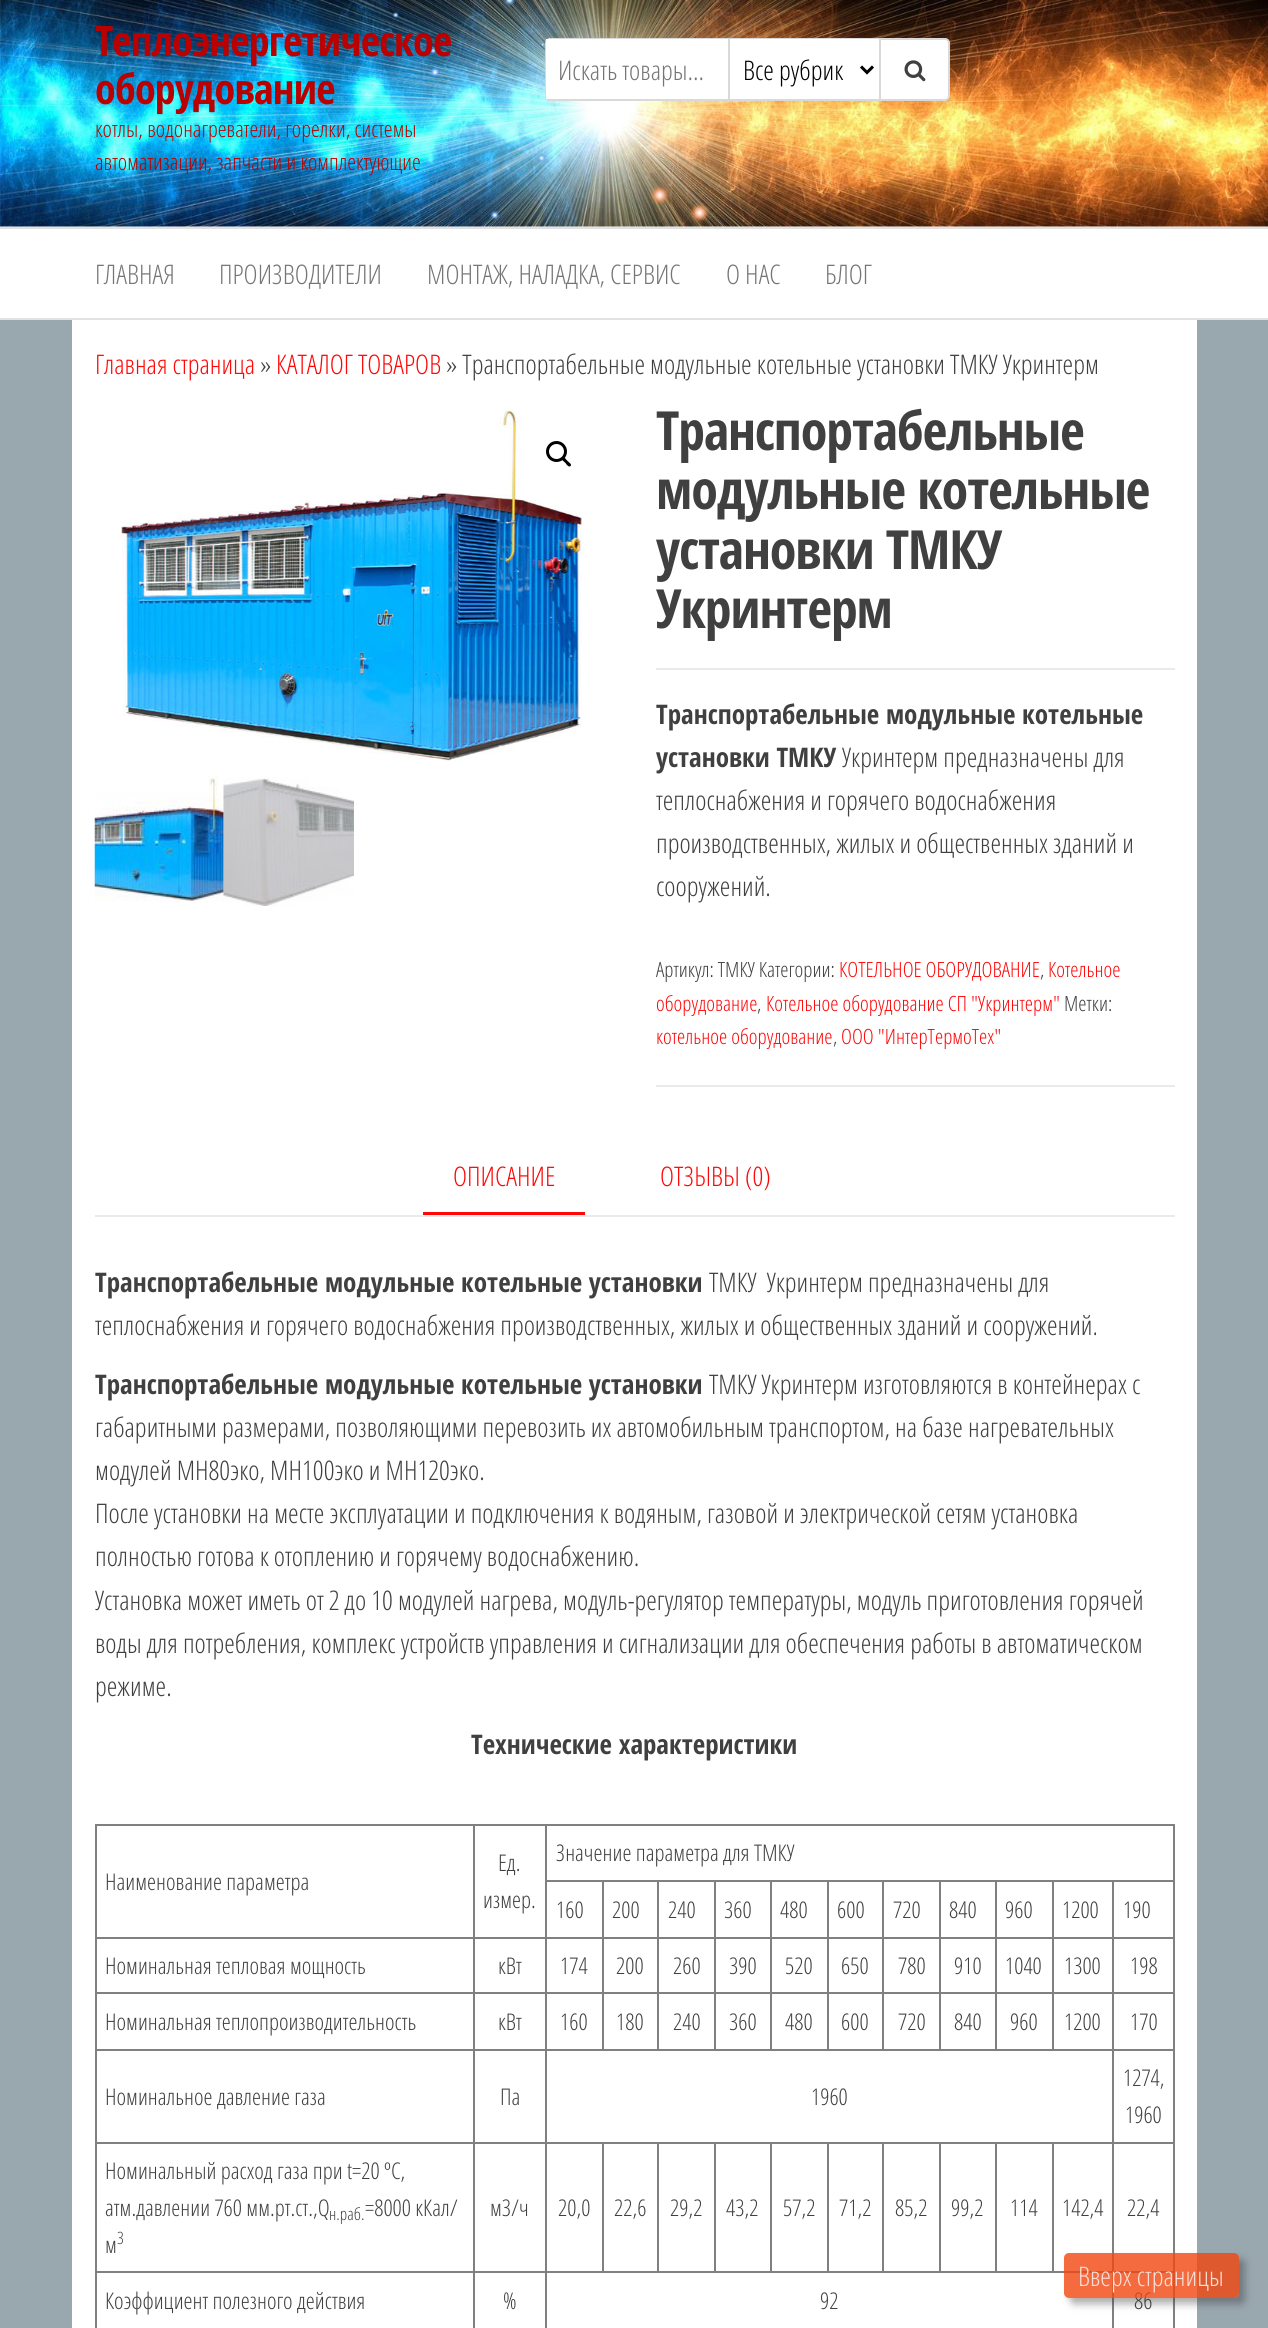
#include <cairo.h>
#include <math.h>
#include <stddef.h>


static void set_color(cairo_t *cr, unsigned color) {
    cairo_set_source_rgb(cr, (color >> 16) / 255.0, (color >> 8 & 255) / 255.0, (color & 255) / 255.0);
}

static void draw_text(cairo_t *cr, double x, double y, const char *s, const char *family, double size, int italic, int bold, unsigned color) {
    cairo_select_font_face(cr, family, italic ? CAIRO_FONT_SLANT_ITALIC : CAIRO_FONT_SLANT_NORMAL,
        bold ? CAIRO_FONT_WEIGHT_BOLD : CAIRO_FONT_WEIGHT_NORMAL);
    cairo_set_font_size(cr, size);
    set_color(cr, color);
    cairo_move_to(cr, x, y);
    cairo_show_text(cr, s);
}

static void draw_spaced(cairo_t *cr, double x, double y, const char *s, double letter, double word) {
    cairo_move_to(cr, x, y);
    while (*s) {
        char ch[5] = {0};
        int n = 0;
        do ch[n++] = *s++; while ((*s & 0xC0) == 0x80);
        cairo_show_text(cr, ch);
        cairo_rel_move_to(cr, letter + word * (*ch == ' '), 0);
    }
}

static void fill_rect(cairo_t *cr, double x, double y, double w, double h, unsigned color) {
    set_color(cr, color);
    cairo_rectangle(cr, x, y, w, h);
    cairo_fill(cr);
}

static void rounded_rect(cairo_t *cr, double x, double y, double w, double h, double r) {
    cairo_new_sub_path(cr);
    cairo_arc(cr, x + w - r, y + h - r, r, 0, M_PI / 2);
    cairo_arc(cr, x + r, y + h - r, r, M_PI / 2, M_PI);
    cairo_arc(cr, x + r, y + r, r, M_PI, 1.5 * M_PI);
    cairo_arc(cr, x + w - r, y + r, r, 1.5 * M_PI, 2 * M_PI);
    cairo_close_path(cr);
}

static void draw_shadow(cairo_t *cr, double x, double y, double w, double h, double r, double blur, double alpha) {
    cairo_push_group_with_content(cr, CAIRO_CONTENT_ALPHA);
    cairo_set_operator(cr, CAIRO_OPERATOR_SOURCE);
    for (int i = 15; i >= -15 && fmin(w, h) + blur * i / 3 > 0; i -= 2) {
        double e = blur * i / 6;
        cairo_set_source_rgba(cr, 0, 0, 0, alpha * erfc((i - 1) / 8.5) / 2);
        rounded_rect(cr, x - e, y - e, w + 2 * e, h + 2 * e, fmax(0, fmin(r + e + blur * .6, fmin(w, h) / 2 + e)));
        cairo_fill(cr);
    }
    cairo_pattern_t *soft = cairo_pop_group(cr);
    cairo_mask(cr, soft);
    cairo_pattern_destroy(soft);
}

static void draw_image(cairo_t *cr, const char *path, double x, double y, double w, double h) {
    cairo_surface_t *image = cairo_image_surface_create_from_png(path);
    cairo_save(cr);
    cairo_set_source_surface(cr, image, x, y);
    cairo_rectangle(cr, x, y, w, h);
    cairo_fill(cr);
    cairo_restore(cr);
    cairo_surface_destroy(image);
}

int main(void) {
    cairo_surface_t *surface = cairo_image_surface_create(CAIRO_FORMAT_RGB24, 1268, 2328);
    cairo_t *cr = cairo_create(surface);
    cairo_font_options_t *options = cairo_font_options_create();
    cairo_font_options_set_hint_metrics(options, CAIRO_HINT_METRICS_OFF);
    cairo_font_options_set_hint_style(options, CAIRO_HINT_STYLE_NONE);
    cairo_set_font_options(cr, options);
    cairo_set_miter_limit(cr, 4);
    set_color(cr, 0x99A7AF);
    cairo_paint(cr);
    fill_rect(cr, 0, 226, 1268, 1, 0xFFFFFF);
    draw_image(cr, "assets/img1.png", 0, 0, 1268, 227);
    cairo_select_font_face(cr, "Open Sans Condensed", CAIRO_FONT_SLANT_NORMAL, CAIRO_FONT_WEIGHT_BOLD);
    cairo_set_font_size(cr, 42);
    set_color(cr, 0xBA0000);
    draw_spaced(cr, 95, 56, "Теплоэнергетическое", -0.8, 0);
    draw_spaced(cr, 95, 104, "оборудование", -0.8, 0);
    draw_text(cr, 95, 137, "котлы, водонагреватели, горелки, системы", "Open Sans Condensed Light", 22.5, 0, 0, 0xBA0000);
    draw_text(cr, 95, 170, "автоматизации, запчасти и комплектующие", "Open Sans Condensed Light", 22.5, 0, 0, 0xBA0000);
    set_color(cr, 0xFFFFFF);
    rounded_rect(cr, 546, 39, 403, 61, 4);
    cairo_fill_preserve(cr);
    set_color(cr, 0xD9D9D9);
    cairo_stroke(cr);
    fill_rect(cr, 546, 39, 182, 60, 0xFFFFFF);
    fill_rect(cr, 728, 39, 2, 60, 0xD9D9D9);
    draw_text(cr, 558, 80, "Искать товары...", "Open Sans Condensed Light", 27, 0, 0, 0x757575);
    fill_rect(cr, 730, 39, 149, 1, 0xFFFFFF);
    cairo_new_path(cr);
    cairo_move_to(cr, 861, 66.5);
    cairo_line_to(cr, 867, 72.5);
    cairo_line_to(cr, 873, 66.5);
    set_color(cr, 0x000000);
    cairo_set_line_width(cr, 3);
    cairo_stroke(cr);
    draw_text(cr, 743, 80, "Все рубрик", "Open Sans Condensed Light", 27, 0, 0, 0x000000);
    fill_rect(cr, 879, 39, 2, 60, 0xD9D9D9);
    draw_image(cr, "assets/img2.png", 904, 60, 22, 22);
    fill_rect(cr, 0, 229, 1268, 89, 0xFFFFFF);
    fill_rect(cr, 0, 227, 1268, 2, 0xE2E2E2);
    fill_rect(cr, 0, 318, 1268, 2, 0xE2E2E2);
    draw_text(cr, 95, 284, "ГЛАВНАЯ", "Open Sans Condensed Light", 27, 0, 0, 0x757575);
    draw_text(cr, 219, 284, "ПРОИЗВОДИТЕЛИ", "Open Sans Condensed Light", 27, 0, 0, 0x757575);
    draw_text(cr, 427, 284, "МОНТАЖ, НАЛАДКА, СЕРВИС", "Open Sans Condensed Light", 27, 0, 0, 0x757575);
    draw_text(cr, 726, 284, "О НАС", "Open Sans Condensed Light", 27, 0, 0, 0x757575);
    draw_text(cr, 825, 284, "БЛОГ", "Open Sans Condensed Light", 27, 0, 0, 0x757575);
    fill_rect(cr, 72, 320, 1125, 2008, 0xFFFFFF);
    draw_text(cr, 95, 374, "Главная страница", "Open Sans Condensed Light", 27, 0, 0, 0xFF0707);
    draw_text(cr, 260, 374, "»", "Open Sans Condensed Light", 27, 0, 0, 0x404040);
    draw_text(cr, 276, 374, "КАТАЛОГ ТОВАРОВ", "Open Sans Condensed Light", 27, 0, 0, 0xFF0707);
    draw_text(cr, 446, 374, "» Транспортабельные модульные котельные установки ТМКУ Укринтерм", "Open Sans Condensed Light", 27, 0, 0, 0x404040);
    draw_image(cr, "assets/img3.png", 121, 407, 461, 354);
    cairo_arc(cr, 556.5, 451.5, 9, 0, 2 * M_PI);
    set_color(cr, 0x000000);
    cairo_stroke(cr);
    cairo_new_path(cr);
    cairo_move_to(cr, 562, 457.5);
    cairo_curve_to(cr, 564, 456, 566.5, 460, 567.5, 461);
    cairo_curve_to(cr, 568.5, 462, 572.5, 464.5, 570.5, 466);
    cairo_curve_to(cr, 569, 468, 566, 464, 565.5, 463);
    cairo_curve_to(cr, 564.5, 462, 560.5, 459.5, 562, 457.5);
    cairo_close_path(cr);
    cairo_fill(cr);
    draw_image(cr, "assets/img4.png", 94, 776, 130, 126);
    draw_image(cr, "assets/img5.png", 223, 777, 131, 129);
    fill_rect(cr, 656, 668, 519, 2, 0xEAEAEA);
    cairo_select_font_face(cr, "Open Sans Condensed", CAIRO_FONT_SLANT_NORMAL, CAIRO_FONT_WEIGHT_BOLD);
    cairo_set_font_size(cr, 54);
    set_color(cr, 0x404040);
    draw_spaced(cr, 656, 450, "Транспортабельные", -1.1, 0);
    draw_spaced(cr, 656, 509, "модульные котельные", -1.1, 0);
    draw_spaced(cr, 656, 569, "установки ТМКУ", -1.1, 0);
    draw_spaced(cr, 656, 628, "Укринтерм", -1.1, 0);
    draw_text(cr, 656, 724, "Транспортабельные модульные котельные", "Open Sans Condensed", 27, 0, 1, 0x404040);
    draw_text(cr, 656, 767, "установки ТМКУ", "Open Sans Condensed", 27, 0, 1, 0x404040);
    draw_text(cr, 842, 767, "Укринтерм предназначены для", "Open Sans Condensed Light", 27, 0, 0, 0x404040);
    draw_text(cr, 656, 810, "теплоснабжения и горячего водоснабжения", "Open Sans Condensed Light", 27, 0, 0, 0x404040);
    draw_text(cr, 656, 853, "производственных, жилых и общественных зданий и", "Open Sans Condensed Light", 27, 0, 0, 0x404040);
    draw_text(cr, 656, 896, "сооружений.", "Open Sans Condensed Light", 27, 0, 0, 0x404040);
    fill_rect(cr, 656, 1085, 519, 2, 0xEAEAEA);
    draw_text(cr, 656, 977, "Артикул: ТМКУ Категории:", "Open Sans Condensed Light", 21, 0, 0, 0x404040);
    draw_text(cr, 839, 977, "КОТЕЛЬНОЕ ОБОРУДОВАНИЕ", "Open Sans Condensed Light", 21, 0, 0, 0xFF0707);
    draw_text(cr, 1040, 977, ",", "Open Sans Condensed Light", 21, 0, 0, 0x404040);
    draw_text(cr, 1048, 977, "Котельное", "Open Sans Condensed Light", 21, 0, 0, 0xFF0707);
    draw_text(cr, 656, 1011, "оборудование", "Open Sans Condensed Light", 21, 0, 0, 0xFF0707);
    draw_text(cr, 757, 1011, ",", "Open Sans Condensed Light", 21, 0, 0, 0x404040);
    draw_text(cr, 766, 1011, "Котельное оборудование СП \"Укринтерм\"", "Open Sans Condensed Light", 21, 0, 0, 0xFF0707);
    draw_text(cr, 1064, 1011, "Метки:", "Open Sans Condensed Light", 21, 0, 0, 0x404040);
    draw_text(cr, 656, 1044, "котельное оборудование", "Open Sans Condensed Light", 21, 0, 0, 0xFF0707);
    draw_text(cr, 833, 1044, ",", "Open Sans Condensed Light", 21, 0, 0, 0x404040);
    draw_text(cr, 841, 1044, "ООО \"ИнтерТермоТех\"", "Open Sans Condensed Light", 21, 0, 0, 0xFF0707);
    fill_rect(cr, 95, 1215, 1080, 2, 0xEAEAEA);
    fill_rect(cr, 423, 1212, 162, 3, 0xFF0707);
    draw_text(cr, 453, 1186, "ОПИСАНИЕ", "Open Sans Condensed Light", 27, 0, 0, 0xFF0707);
    draw_text(cr, 660, 1186, "ОТЗЫВЫ (0)", "Open Sans Condensed Light", 27, 0, 0, 0xFF0707);
    draw_text(cr, 95, 1292, "Транспортабельные модульные котельные установки", "Open Sans Condensed", 27, 0, 1, 0x404040);
    draw_text(cr, 709, 1292, "ТМКУ  Укринтерм предназначены для", "Open Sans Condensed Light", 27, 0, 0, 0x404040);
    draw_text(cr, 95, 1335, "теплоснабжения и горячего водоснабжения производственных, жилых и общественных зданий и сооружений.", "Open Sans Condensed Light", 27, 0, 0, 0x404040);
    draw_text(cr, 95, 1394, "Транспортабельные модульные котельные установки", "Open Sans Condensed", 27, 0, 1, 0x404040);
    draw_text(cr, 709, 1394, "ТМКУ Укринтерм изготовляются в контейнерах с", "Open Sans Condensed Light", 27, 0, 0, 0x404040);
    draw_text(cr, 95, 1437, "габаритными размерами, позволяющими перевозить их автомобильным транспортом, на базе нагревательных", "Open Sans Condensed Light", 27, 0, 0, 0x404040);
    draw_text(cr, 95, 1480, "модулей МН80эко, МН100эко и МН120эко.", "Open Sans Condensed Light", 27, 0, 0, 0x404040);
    draw_text(cr, 95, 1523, "После установки на месте эксплуатации и подключения к водяным, газовой и электрической сетям установка", "Open Sans Condensed Light", 27, 0, 0, 0x404040);
    draw_text(cr, 95, 1566, "полностью готова к отоплению и горячему водоснабжению.", "Open Sans Condensed Light", 27, 0, 0, 0x404040);
    draw_text(cr, 95, 1610, "Установка может иметь от 2 до 10 модулей нагрева, модуль-регулятор температуры, модуль приготовления горячей", "Open Sans Condensed Light", 27, 0, 0, 0x404040);
    draw_text(cr, 95, 1653, "воды для потребления, комплекс устройств управления и сигнализации для обеспечения работы в автоматическом", "Open Sans Condensed Light", 27, 0, 0, 0x404040);
    draw_text(cr, 95, 1696, "режиме.", "Open Sans Condensed Light", 27, 0, 0, 0x404040);
    draw_text(cr, 471, 1754, "Технические характеристики", "Open Sans Condensed", 27, 0, 1, 0x404040);
    fill_rect(cr, 95, 1824, 1080, 2, 0x808080);
    fill_rect(cr, 1173, 1824, 2, 504, 0x808080);
    fill_rect(cr, 95, 1824, 2, 504, 0x808080);
    draw_text(cr, 105, 1890, "Наименование параметра", "Open Sans Condensed Light", 23, 0, 0, 0x404040);
    fill_rect(cr, 1112, 1937, 63, 2, 0x808080);
    fill_rect(cr, 1112, 1992, 63, 2, 0x808080);
    fill_rect(cr, 1112, 2049, 63, 2, 0x808080);
    fill_rect(cr, 1112, 2142, 63, 2, 0x808080);
    fill_rect(cr, 1112, 2271, 63, 2, 0x808080);
    fill_rect(cr, 1112, 2271, 2, 57, 0x808080);
    fill_rect(cr, 545, 2271, 568, 2, 0x808080);
    fill_rect(cr, 1112, 2142, 2, 131, 0x808080);
    fill_rect(cr, 1052, 2142, 61, 2, 0x808080);
    fill_rect(cr, 1112, 2049, 2, 95, 0x808080);
    fill_rect(cr, 545, 2049, 568, 2, 0x808080);
    fill_rect(cr, 1112, 1992, 2, 59, 0x808080);
    fill_rect(cr, 1052, 1992, 61, 2, 0x808080);
    fill_rect(cr, 1112, 1937, 2, 57, 0x808080);
    fill_rect(cr, 1052, 1937, 61, 2, 0x808080);
    fill_rect(cr, 1052, 1992, 2, 59, 0x808080);
    fill_rect(cr, 995, 1992, 58, 2, 0x808080);
    fill_rect(cr, 1052, 1937, 2, 57, 0x808080);
    fill_rect(cr, 995, 1937, 58, 2, 0x808080);
    fill_rect(cr, 995, 1992, 2, 59, 0x808080);
    fill_rect(cr, 939, 1992, 57, 2, 0x808080);
    fill_rect(cr, 995, 1937, 2, 57, 0x808080);
    fill_rect(cr, 939, 1937, 57, 2, 0x808080);
    fill_rect(cr, 939, 1992, 2, 59, 0x808080);
    fill_rect(cr, 882, 1992, 59, 2, 0x808080);
    fill_rect(cr, 939, 1937, 2, 57, 0x808080);
    fill_rect(cr, 882, 1937, 59, 2, 0x808080);
    fill_rect(cr, 882, 1992, 2, 59, 0x808080);
    fill_rect(cr, 827, 1992, 57, 2, 0x808080);
    fill_rect(cr, 882, 1937, 2, 57, 0x808080);
    fill_rect(cr, 827, 1937, 57, 2, 0x808080);
    fill_rect(cr, 827, 1992, 2, 59, 0x808080);
    fill_rect(cr, 770, 1992, 58, 2, 0x808080);
    fill_rect(cr, 827, 1937, 2, 57, 0x808080);
    fill_rect(cr, 770, 1937, 58, 2, 0x808080);
    fill_rect(cr, 770, 1992, 2, 59, 0x808080);
    fill_rect(cr, 714, 1992, 57, 2, 0x808080);
    fill_rect(cr, 770, 1937, 2, 57, 0x808080);
    fill_rect(cr, 714, 1937, 57, 2, 0x808080);
    fill_rect(cr, 714, 1992, 2, 59, 0x808080);
    fill_rect(cr, 657, 1992, 59, 2, 0x808080);
    fill_rect(cr, 714, 1937, 2, 57, 0x808080);
    fill_rect(cr, 657, 1937, 59, 2, 0x808080);
    fill_rect(cr, 657, 1992, 2, 59, 0x808080);
    fill_rect(cr, 602, 1992, 57, 2, 0x808080);
    fill_rect(cr, 657, 1937, 2, 57, 0x808080);
    fill_rect(cr, 602, 1937, 57, 2, 0x808080);
    fill_rect(cr, 602, 1992, 2, 59, 0x808080);
    fill_rect(cr, 545, 1992, 58, 2, 0x808080);
    fill_rect(cr, 602, 1937, 2, 57, 0x808080);
    fill_rect(cr, 545, 1937, 58, 2, 0x808080);
    fill_rect(cr, 1052, 2142, 2, 131, 0x808080);
    fill_rect(cr, 995, 2142, 58, 2, 0x808080);
    fill_rect(cr, 995, 2142, 2, 131, 0x808080);
    fill_rect(cr, 939, 2142, 57, 2, 0x808080);
    fill_rect(cr, 939, 2142, 2, 131, 0x808080);
    fill_rect(cr, 882, 2142, 59, 2, 0x808080);
    fill_rect(cr, 882, 2142, 2, 131, 0x808080);
    fill_rect(cr, 827, 2142, 57, 2, 0x808080);
    fill_rect(cr, 827, 2142, 2, 131, 0x808080);
    fill_rect(cr, 770, 2142, 58, 2, 0x808080);
    fill_rect(cr, 770, 2142, 2, 131, 0x808080);
    fill_rect(cr, 714, 2142, 57, 2, 0x808080);
    fill_rect(cr, 714, 2142, 2, 131, 0x808080);
    fill_rect(cr, 657, 2142, 59, 2, 0x808080);
    fill_rect(cr, 657, 2142, 2, 131, 0x808080);
    fill_rect(cr, 602, 2142, 57, 2, 0x808080);
    fill_rect(cr, 602, 2142, 2, 131, 0x808080);
    fill_rect(cr, 545, 2142, 58, 2, 0x808080);
    fill_rect(cr, 545, 2271, 2, 57, 0x808080);
    fill_rect(cr, 473, 2271, 73, 2, 0x808080);
    fill_rect(cr, 545, 2142, 2, 131, 0x808080);
    fill_rect(cr, 473, 2142, 73, 2, 0x808080);
    fill_rect(cr, 545, 2049, 2, 95, 0x808080);
    fill_rect(cr, 473, 2049, 73, 2, 0x808080);
    fill_rect(cr, 545, 1992, 2, 59, 0x808080);
    fill_rect(cr, 473, 1992, 73, 2, 0x808080);
    fill_rect(cr, 545, 1937, 2, 57, 0x808080);
    fill_rect(cr, 473, 1937, 73, 2, 0x808080);
    fill_rect(cr, 473, 2271, 2, 57, 0x808080);
    fill_rect(cr, 95, 2271, 379, 2, 0x808080);
    fill_rect(cr, 473, 2142, 2, 131, 0x808080);
    fill_rect(cr, 95, 2142, 379, 2, 0x808080);
    fill_rect(cr, 473, 2049, 2, 95, 0x808080);
    fill_rect(cr, 95, 2049, 379, 2, 0x808080);
    fill_rect(cr, 473, 1992, 2, 59, 0x808080);
    fill_rect(cr, 95, 1992, 379, 2, 0x808080);
    fill_rect(cr, 473, 1937, 2, 57, 0x808080);
    fill_rect(cr, 95, 1937, 379, 2, 0x808080);
    fill_rect(cr, 473, 1824, 2, 114, 0x808080);
    draw_text(cr, 498, 1871, "Ед.", "Open Sans Condensed Light", 23, 0, 0, 0x404040);
    draw_text(cr, 483, 1908, "измер.", "Open Sans Condensed Light", 23, 0, 0, 0x404040);
    draw_text(cr, 556, 1861, "Значение параметра для ТМКУ", "Open Sans Condensed Light", 23, 0, 0, 0x404040);
    fill_rect(cr, 1112, 1880, 63, 2, 0x808080);
    fill_rect(cr, 1112, 1880, 2, 58, 0x808080);
    fill_rect(cr, 1052, 1880, 61, 2, 0x808080);
    fill_rect(cr, 1052, 1880, 2, 58, 0x808080);
    fill_rect(cr, 995, 1880, 58, 2, 0x808080);
    fill_rect(cr, 995, 1880, 2, 58, 0x808080);
    fill_rect(cr, 939, 1880, 57, 2, 0x808080);
    fill_rect(cr, 939, 1880, 2, 58, 0x808080);
    fill_rect(cr, 882, 1880, 59, 2, 0x808080);
    fill_rect(cr, 882, 1880, 2, 58, 0x808080);
    fill_rect(cr, 827, 1880, 57, 2, 0x808080);
    fill_rect(cr, 827, 1880, 2, 58, 0x808080);
    fill_rect(cr, 770, 1880, 58, 2, 0x808080);
    fill_rect(cr, 770, 1880, 2, 58, 0x808080);
    fill_rect(cr, 714, 1880, 57, 2, 0x808080);
    fill_rect(cr, 714, 1880, 2, 58, 0x808080);
    fill_rect(cr, 657, 1880, 59, 2, 0x808080);
    fill_rect(cr, 657, 1880, 2, 58, 0x808080);
    fill_rect(cr, 602, 1880, 57, 2, 0x808080);
    fill_rect(cr, 602, 1880, 2, 58, 0x808080);
    fill_rect(cr, 545, 1880, 58, 2, 0x808080);
    fill_rect(cr, 545, 1824, 2, 114, 0x808080);
    draw_text(cr, 556, 1918, "160", "Open Sans Condensed Light", 23, 0, 0, 0x404040);
    draw_text(cr, 612, 1918, "200", "Open Sans Condensed Light", 23, 0, 0, 0x404040);
    draw_text(cr, 668, 1918, "240", "Open Sans Condensed Light", 23, 0, 0, 0x404040);
    draw_text(cr, 724, 1918, "360", "Open Sans Condensed Light", 23, 0, 0, 0x404040);
    draw_text(cr, 780, 1918, "480", "Open Sans Condensed Light", 23, 0, 0, 0x404040);
    draw_text(cr, 837, 1918, "600", "Open Sans Condensed Light", 23, 0, 0, 0x404040);
    draw_text(cr, 893, 1918, "720", "Open Sans Condensed Light", 23, 0, 0, 0x404040);
    draw_text(cr, 949, 1918, "840", "Open Sans Condensed Light", 23, 0, 0, 0x404040);
    draw_text(cr, 1005, 1918, "960", "Open Sans Condensed Light", 23, 0, 0, 0x404040);
    draw_text(cr, 1062, 1918, "1200", "Open Sans Condensed Light", 23, 0, 0, 0x404040);
    draw_text(cr, 1123, 1918, "190", "Open Sans Condensed Light", 23, 0, 0, 0x404040);
    draw_text(cr, 105, 1974, "Номинальная тепловая мощность", "Open Sans Condensed Light", 23, 0, 0, 0x404040);
    draw_text(cr, 498, 1974, "кВт", "Open Sans Condensed Light", 23, 0, 0, 0x404040);
    draw_text(cr, 560, 1974, "174", "Open Sans Condensed Light", 23, 0, 0, 0x404040);
    draw_text(cr, 616, 1974, "200", "Open Sans Condensed Light", 23, 0, 0, 0x404040);
    draw_text(cr, 673, 1974, "260", "Open Sans Condensed Light", 23, 0, 0, 0x404040);
    draw_text(cr, 729, 1974, "390", "Open Sans Condensed Light", 23, 0, 0, 0x404040);
    draw_text(cr, 785, 1974, "520", "Open Sans Condensed Light", 23, 0, 0, 0x404040);
    draw_text(cr, 841, 1974, "650", "Open Sans Condensed Light", 23, 0, 0, 0x404040);
    draw_text(cr, 898, 1974, "780", "Open Sans Condensed Light", 23, 0, 0, 0x404040);
    draw_text(cr, 954, 1974, "910", "Open Sans Condensed Light", 23, 0, 0, 0x404040);
    draw_text(cr, 1005, 1974, "1040", "Open Sans Condensed Light", 23, 0, 0, 0x404040);
    draw_text(cr, 1064, 1974, "1300", "Open Sans Condensed Light", 23, 0, 0, 0x404040);
    draw_text(cr, 1130, 1974, "198", "Open Sans Condensed Light", 23, 0, 0, 0x404040);
    draw_text(cr, 105, 2030, "Номинальная теплопроизводительность", "Open Sans Condensed Light", 23, 0, 0, 0x404040);
    draw_text(cr, 498, 2030, "кВт", "Open Sans Condensed Light", 23, 0, 0, 0x404040);
    draw_text(cr, 560, 2030, "160", "Open Sans Condensed Light", 23, 0, 0, 0x404040);
    draw_text(cr, 616, 2030, "180", "Open Sans Condensed Light", 23, 0, 0, 0x404040);
    draw_text(cr, 673, 2030, "240", "Open Sans Condensed Light", 23, 0, 0, 0x404040);
    draw_text(cr, 729, 2030, "360", "Open Sans Condensed Light", 23, 0, 0, 0x404040);
    draw_text(cr, 785, 2030, "480", "Open Sans Condensed Light", 23, 0, 0, 0x404040);
    draw_text(cr, 841, 2030, "600", "Open Sans Condensed Light", 23, 0, 0, 0x404040);
    draw_text(cr, 898, 2030, "720", "Open Sans Condensed Light", 23, 0, 0, 0x404040);
    draw_text(cr, 954, 2030, "840", "Open Sans Condensed Light", 23, 0, 0, 0x404040);
    draw_text(cr, 1010, 2030, "960", "Open Sans Condensed Light", 23, 0, 0, 0x404040);
    draw_text(cr, 1064, 2030, "1200", "Open Sans Condensed Light", 23, 0, 0, 0x404040);
    draw_text(cr, 1130, 2030, "170", "Open Sans Condensed Light", 23, 0, 0, 0x404040);
    draw_text(cr, 105, 2105, "Номинальное давление газа", "Open Sans Condensed Light", 23, 0, 0, 0x404040);
    draw_text(cr, 500, 2105, "Па", "Open Sans Condensed Light", 23, 0, 0, 0x404040);
    draw_text(cr, 811, 2105, "1960", "Open Sans Condensed Light", 23, 0, 0, 0x404040);
    draw_text(cr, 1123, 2086, "1274,", "Open Sans Condensed Light", 23, 0, 0, 0x404040);
    draw_text(cr, 1125, 2123, "1960", "Open Sans Condensed Light", 23, 0, 0, 0x404040);
    draw_text(cr, 105, 2179, "Номинальный расход газа при t=20 ºС,", "Open Sans Condensed Light", 23, 0, 0, 0x404040);
    draw_text(cr, 105, 2216, "атм.давлении 760 мм.рт.ст.,Q", "Open Sans Condensed Light", 23, 0, 0, 0x404040);
    draw_text(cr, 329, 2220, "н.раб.", "Open Sans Condensed Light", 17, 0, 0, 0x404040);
    draw_text(cr, 365, 2216, "=8000 кКал/", "Open Sans Condensed Light", 23, 0, 0, 0x404040);
    draw_text(cr, 117, 2244, "3", "Open Sans Condensed Light", 17, 0, 0, 0x404040);
    draw_text(cr, 105, 2253, "м", "Open Sans Condensed Light", 23, 0, 0, 0x404040);
    draw_text(cr, 490, 2216, "м3/ч", "Open Sans Condensed Light", 23, 0, 0, 0x404040);
    draw_text(cr, 558, 2216, "20,0", "Open Sans Condensed Light", 23, 0, 0, 0x404040);
    draw_text(cr, 614, 2216, "22,6", "Open Sans Condensed Light", 23, 0, 0, 0x404040);
    draw_text(cr, 670, 2216, "29,2", "Open Sans Condensed Light", 23, 0, 0, 0x404040);
    draw_text(cr, 726, 2216, "43,2", "Open Sans Condensed Light", 23, 0, 0, 0x404040);
    draw_text(cr, 783, 2216, "57,2", "Open Sans Condensed Light", 23, 0, 0, 0x404040);
    draw_text(cr, 839, 2216, "71,2", "Open Sans Condensed Light", 23, 0, 0, 0x404040);
    draw_text(cr, 895, 2216, "85,2", "Open Sans Condensed Light", 23, 0, 0, 0x404040);
    draw_text(cr, 951, 2216, "99,2", "Open Sans Condensed Light", 23, 0, 0, 0x404040);
    draw_text(cr, 1010, 2216, "114", "Open Sans Condensed Light", 23, 0, 0, 0x404040);
    draw_text(cr, 1062, 2216, "142,4", "Open Sans Condensed Light", 23, 0, 0, 0x404040);
    draw_text(cr, 1127, 2216, "22,4", "Open Sans Condensed Light", 23, 0, 0, 0x404040);
    draw_text(cr, 105, 2309, "Коэффициент полезного действия", "Open Sans Condensed Light", 23, 0, 0, 0x404040);
    draw_text(cr, 503, 2309, "%", "Open Sans Condensed Light", 23, 0, 0, 0x404040);
    draw_text(cr, 820, 2309, "92", "Open Sans Condensed Light", 23, 0, 0, 0x404040);
    draw_text(cr, 1134, 2309, "86", "Open Sans Condensed Light", 23, 0, 0, 0x404040);
    cairo_save(cr);
    cairo_set_fill_rule(cr, CAIRO_FILL_RULE_EVEN_ODD);
    cairo_new_path(cr);
    cairo_move_to(cr, 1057, 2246);
    cairo_line_to(cr, 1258, 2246);
    cairo_line_to(cr, 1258, 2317);
    cairo_line_to(cr, 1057, 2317);
    cairo_close_path(cr);
    cairo_move_to(cr, 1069, 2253);
    cairo_line_to(cr, 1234, 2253);
    cairo_curve_to(cr, 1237, 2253, 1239, 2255, 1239, 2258);
    cairo_line_to(cr, 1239, 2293);
    cairo_curve_to(cr, 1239, 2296, 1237, 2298, 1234, 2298);
    cairo_line_to(cr, 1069, 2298);
    cairo_curve_to(cr, 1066, 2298, 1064, 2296, 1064, 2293);
    cairo_line_to(cr, 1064, 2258);
    cairo_curve_to(cr, 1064, 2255, 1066, 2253, 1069, 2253);
    cairo_close_path(cr);
    cairo_clip(cr);
    set_color(cr, 0x323232);
    draw_shadow(cr, 1070, 2259, 175, 45, 5, 4, 0.4);
    cairo_restore(cr);
    cairo_set_source_rgba(cr, 0.941, 0.278, 0.055, 0.8);
    rounded_rect(cr, 1064, 2253, 175, 45, 5);
    cairo_fill(cr);
    draw_text(cr, 1078, 2286, "Вверх страницы", "Open Sans Condensed Light", 27, 0, 0, 0xFBE0D7);
    cairo_surface_write_to_png(surface, "output.png");
    cairo_font_options_destroy(options);
    cairo_destroy(cr);
    cairo_surface_destroy(surface);
    return 0;
}
